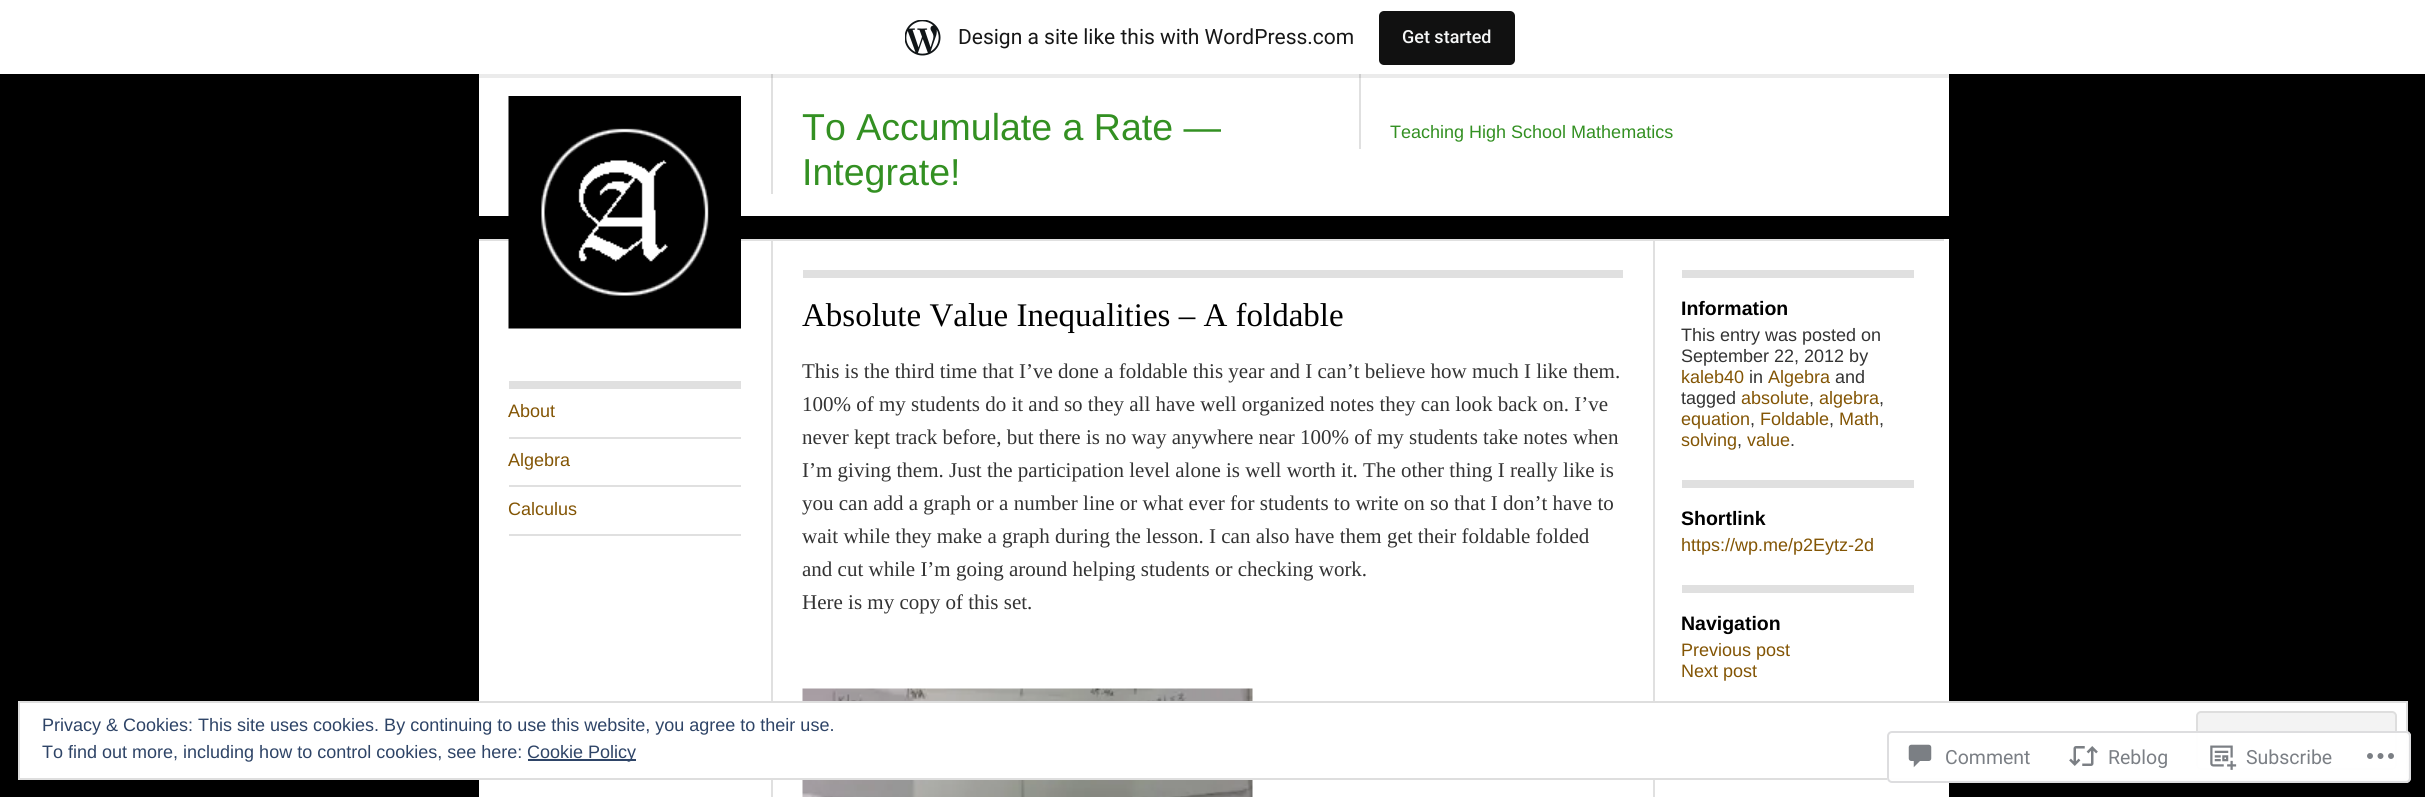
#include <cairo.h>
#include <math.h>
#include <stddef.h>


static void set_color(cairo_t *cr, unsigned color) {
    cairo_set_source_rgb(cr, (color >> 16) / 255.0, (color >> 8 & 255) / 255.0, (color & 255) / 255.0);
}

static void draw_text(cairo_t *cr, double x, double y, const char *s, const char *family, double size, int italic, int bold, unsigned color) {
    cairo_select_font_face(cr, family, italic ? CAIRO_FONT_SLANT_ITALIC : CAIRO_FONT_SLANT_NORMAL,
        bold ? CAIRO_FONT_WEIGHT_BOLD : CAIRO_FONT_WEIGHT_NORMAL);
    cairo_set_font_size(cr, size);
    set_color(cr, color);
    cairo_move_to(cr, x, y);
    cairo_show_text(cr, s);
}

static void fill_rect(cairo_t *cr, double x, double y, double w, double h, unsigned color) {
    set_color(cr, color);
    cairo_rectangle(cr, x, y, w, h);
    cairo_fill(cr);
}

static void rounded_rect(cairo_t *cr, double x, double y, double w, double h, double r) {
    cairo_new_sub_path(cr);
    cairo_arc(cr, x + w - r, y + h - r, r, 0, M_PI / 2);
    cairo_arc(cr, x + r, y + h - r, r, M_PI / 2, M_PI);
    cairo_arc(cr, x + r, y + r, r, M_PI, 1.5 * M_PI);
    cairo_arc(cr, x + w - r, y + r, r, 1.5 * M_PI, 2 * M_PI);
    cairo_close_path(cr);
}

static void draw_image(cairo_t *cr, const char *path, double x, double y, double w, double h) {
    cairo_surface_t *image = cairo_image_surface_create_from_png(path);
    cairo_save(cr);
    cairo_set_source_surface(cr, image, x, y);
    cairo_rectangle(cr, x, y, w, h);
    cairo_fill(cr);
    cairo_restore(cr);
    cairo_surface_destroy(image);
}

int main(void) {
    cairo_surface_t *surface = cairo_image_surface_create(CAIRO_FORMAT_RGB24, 2425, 797);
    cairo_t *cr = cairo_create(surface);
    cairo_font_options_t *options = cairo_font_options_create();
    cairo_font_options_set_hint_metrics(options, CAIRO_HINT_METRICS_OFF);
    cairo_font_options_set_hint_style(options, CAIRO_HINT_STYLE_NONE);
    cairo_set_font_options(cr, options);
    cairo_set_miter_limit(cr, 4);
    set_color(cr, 0x000000);
    cairo_paint(cr);
    fill_rect(cr, 479, 74, 1470, 142, 0xFFFFFF);
    fill_rect(cr, 771, 74, 2, 120, 0xE0E0E0);
    fill_rect(cr, 1359, 74, 2, 75, 0xE0E0E0);
    cairo_set_source_rgba(cr, 0, 0, 0, 0.08);
    cairo_new_path(cr);
    cairo_move_to(cr, 2, 74);
    cairo_line_to(cr, 2, 78);
    cairo_line_to(cr, 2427, 78);
    cairo_line_to(cr, 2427, 5);
    cairo_line_to(cr, 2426, 5);
    cairo_line_to(cr, 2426, 74);
    cairo_close_path(cr);
    cairo_fill(cr);
    fill_rect(cr, 0, 0, 2425, 74, 0xFFFFFF);
    draw_image(cr, "assets/img1.png", 905, 20, 36, 36);
    draw_text(cr, 958, 44, "Design a site like this with WordPress.com", "Roboto", 21, 0, 0, 0x171717);
    set_color(cr, 0x111111);
    rounded_rect(cr, 1379, 11, 136, 54, 5);
    cairo_fill(cr);
    draw_text(cr, 1402, 43, "Get started", "Roboto Medium", 18, 0, 0, 0xF6F7F7);
    fill_rect(cr, 479, 239, 1470, 558, 0xFFFFFF);
    fill_rect(cr, 479, 239, 1176, 2, 0xE0E0E0);
    draw_image(cr, "assets/img2.png", 508, 96, 233, 233);
    draw_text(cr, 802, 140, "To Accumulate a Rate —", "Liberation Sans", 37.5, 0, 0, 0x339022);
    draw_text(cr, 802, 185, "Integrate!", "Liberation Sans", 37.5, 0, 0, 0x339022);
    draw_text(cr, 1390, 138, "Teaching High School Mathematics", "Liberation Sans", 18, 0, 0, 0x339022);
    fill_rect(cr, 509, 381, 232, 8, 0xE0E0E0);
    fill_rect(cr, 509, 437, 232, 2, 0xE0E0E0);
    draw_text(cr, 508, 417, "About", "Liberation Sans", 18, 0, 0, 0x835504);
    fill_rect(cr, 509, 485, 232, 2, 0xE0E0E0);
    draw_text(cr, 508, 466, "Algebra", "Liberation Sans", 18, 0, 0, 0x835504);
    fill_rect(cr, 509, 534, 232, 2, 0xE0E0E0);
    draw_text(cr, 508, 515, "Calculus", "Liberation Sans", 18, 0, 0, 0x835504);
    fill_rect(cr, 1653, 239, 2, 558, 0xE0E0E0);
    fill_rect(cr, 771, 239, 2, 558, 0xE0E0E0);
    fill_rect(cr, 803, 270, 820, 8, 0xE0E0E0);
    draw_text(cr, 802, 326, "Absolute Value Inequalities – A foldable", "Liberation Serif", 33, 0, 0, 0x000000);
    draw_text(cr, 802, 378, "This is the third time that I’ve done a foldable this year and I can’t believe how much I like them.", "Liberation Serif", 21, 0, 0, 0x333333);
    draw_text(cr, 802, 411, "100% of my students do it and so they all have well organized notes they can look back on. I’ve", "Liberation Serif", 21, 0, 0, 0x333333);
    draw_text(cr, 802, 444, "never kept track before, but there is no way anywhere near 100% of my students take notes when", "Liberation Serif", 21, 0, 0, 0x333333);
    draw_text(cr, 802, 477, "I’m giving them. Just the participation level alone is well worth it. The other thing I really like is", "Liberation Serif", 21, 0, 0, 0x333333);
    draw_text(cr, 802, 510, "you can add a graph or a number line or what ever for students to write on so that I don’t have to", "Liberation Serif", 21, 0, 0, 0x333333);
    draw_text(cr, 802, 543, "wait while they make a graph during the lesson. I can also have them get their foldable folded", "Liberation Serif", 21, 0, 0, 0x333333);
    draw_text(cr, 802, 576, "and cut while I’m going around helping students or checking work.", "Liberation Serif", 21, 0, 0, 0x333333);
    draw_text(cr, 802, 609, "Here is my copy of this set.", "Liberation Serif", 21, 0, 0, 0x333333);
    draw_image(cr, "assets/img3.png", 802, 688, 451, 109);
    fill_rect(cr, 1652, 239, 292, 2, 0xE0E0E0);
    fill_rect(cr, 1682, 270, 232, 8, 0xE0E0E0);
    draw_text(cr, 1681, 315, "Information", "Liberation Sans", 19.5, 0, 1, 0x000000);
    draw_text(cr, 1681, 341, "This entry was posted on", "Liberation Sans", 18, 0, 0, 0x333333);
    draw_text(cr, 1681, 362, "September 22, 2012 by", "Liberation Sans", 18, 0, 0, 0x333333);
    draw_text(cr, 1681, 383, "kaleb40", "Liberation Sans", 18, 0, 0, 0x835504);
    draw_text(cr, 1749, 383, "in", "Liberation Sans", 18, 0, 0, 0x333333);
    draw_text(cr, 1768, 383, "Algebra", "Liberation Sans", 18, 0, 0, 0x835504);
    draw_text(cr, 1835, 383, "and", "Liberation Sans", 18, 0, 0, 0x333333);
    draw_text(cr, 1681, 404, "tagged", "Liberation Sans", 18, 0, 0, 0x333333);
    draw_text(cr, 1741, 404, "absolute", "Liberation Sans", 18, 0, 0, 0x835504);
    draw_text(cr, 1809, 404, ",", "Liberation Sans", 18, 0, 0, 0x333333);
    draw_text(cr, 1819, 404, "algebra", "Liberation Sans", 18, 0, 0, 0x835504);
    draw_text(cr, 1879, 404, ",", "Liberation Sans", 18, 0, 0, 0x333333);
    draw_text(cr, 1681, 425, "equation", "Liberation Sans", 18, 0, 0, 0x835504);
    draw_text(cr, 1750, 425, ",", "Liberation Sans", 18, 0, 0, 0x333333);
    draw_text(cr, 1760, 425, "Foldable", "Liberation Sans", 18, 0, 0, 0x835504);
    draw_text(cr, 1829, 425, ",", "Liberation Sans", 18, 0, 0, 0x333333);
    draw_text(cr, 1839, 425, "Math", "Liberation Sans", 18, 0, 0, 0x835504);
    draw_text(cr, 1879, 425, ",", "Liberation Sans", 18, 0, 0, 0x333333);
    draw_text(cr, 1681, 446, "solving", "Liberation Sans", 18, 0, 0, 0x835504);
    draw_text(cr, 1737, 446, ",", "Liberation Sans", 18, 0, 0, 0x333333);
    draw_text(cr, 1747, 446, "value", "Liberation Sans", 18, 0, 0, 0x835504);
    draw_text(cr, 1790, 446, ".", "Liberation Sans", 18, 0, 0, 0x333333);
    fill_rect(cr, 1682, 480, 232, 8, 0xE0E0E0);
    draw_text(cr, 1681, 525, "Shortlink", "Liberation Sans", 19.5, 0, 1, 0x000000);
    draw_text(cr, 1681, 551, "https://wp.me/p2Eytz-2d", "Liberation Sans", 18, 0, 0, 0x835504);
    fill_rect(cr, 1682, 585, 232, 8, 0xE0E0E0);
    draw_text(cr, 1681, 630, "Navigation", "Liberation Sans", 19.5, 0, 1, 0x000000);
    draw_text(cr, 1681, 656, "Previous post", "Liberation Sans", 18, 0, 0, 0x835504);
    draw_text(cr, 1681, 677, "Next post", "Liberation Sans", 18, 0, 0, 0x835504);
    set_color(cr, 0xFFFFFF);
    cairo_rectangle(cr, 19, 702, 2388, 77);
    cairo_fill_preserve(cr);
    set_color(cr, 0xDEDEDE);
    cairo_stroke(cr);
    draw_text(cr, 42, 731, "Privacy & Cookies: This site uses cookies. By continuing to use this website, you agree to their use.", "Liberation Sans", 18, 0, 0, 0x2E4467);
    set_color(cr, 0xF3F3F3);
    rounded_rect(cr, 2197, 712, 199, 57, 4);
    cairo_fill_preserve(cr);
    set_color(cr, 0xDEDEDE);
    cairo_stroke(cr);
    draw_text(cr, 42, 758, "To find out more, including how to control cookies, see here:", "Liberation Sans", 18, 0, 0, 0x2E4467);
    fill_rect(cr, 528, 759, 108, 2, 0x2E4467);
    draw_text(cr, 527, 758, "Cookie Policy", "Liberation Sans", 18, 0, 0, 0x2E4467);
    cairo_set_source_rgba(cr, 1, 1, 1, 0.98);
    rounded_rect(cr, 1887, 731, 524, 52, 5);
    cairo_fill(cr);
    rounded_rect(cr, 1888, 732, 522, 50, 4);
    cairo_set_source_rgba(cr, 0.863, 0.863, 0.871, 0.98);
    cairo_stroke(cr);
    draw_image(cr, "assets/img4.png", 1908, 744, 24, 24);
    draw_text(cr, 1945, 764, "Comment", "Roboto", 19.5, 0, 0, 0x7B7F85);
    draw_image(cr, "assets/img5.png", 2069, 746, 29, 20);
    draw_text(cr, 2108, 764, "Reblog", "Roboto", 19.5, 0, 0, 0x7B7F85);
    draw_image(cr, "assets/img6.png", 2210, 745, 27, 25);
    draw_text(cr, 2246, 764, "Subscribe", "Roboto", 19.5, 0, 0, 0x7B7F85);
    draw_image(cr, "assets/img7.png", 2367, 753, 27, 6);
    cairo_surface_write_to_png(surface, "output.png");
    cairo_font_options_destroy(options);
    cairo_destroy(cr);
    cairo_surface_destroy(surface);
    return 0;
}
